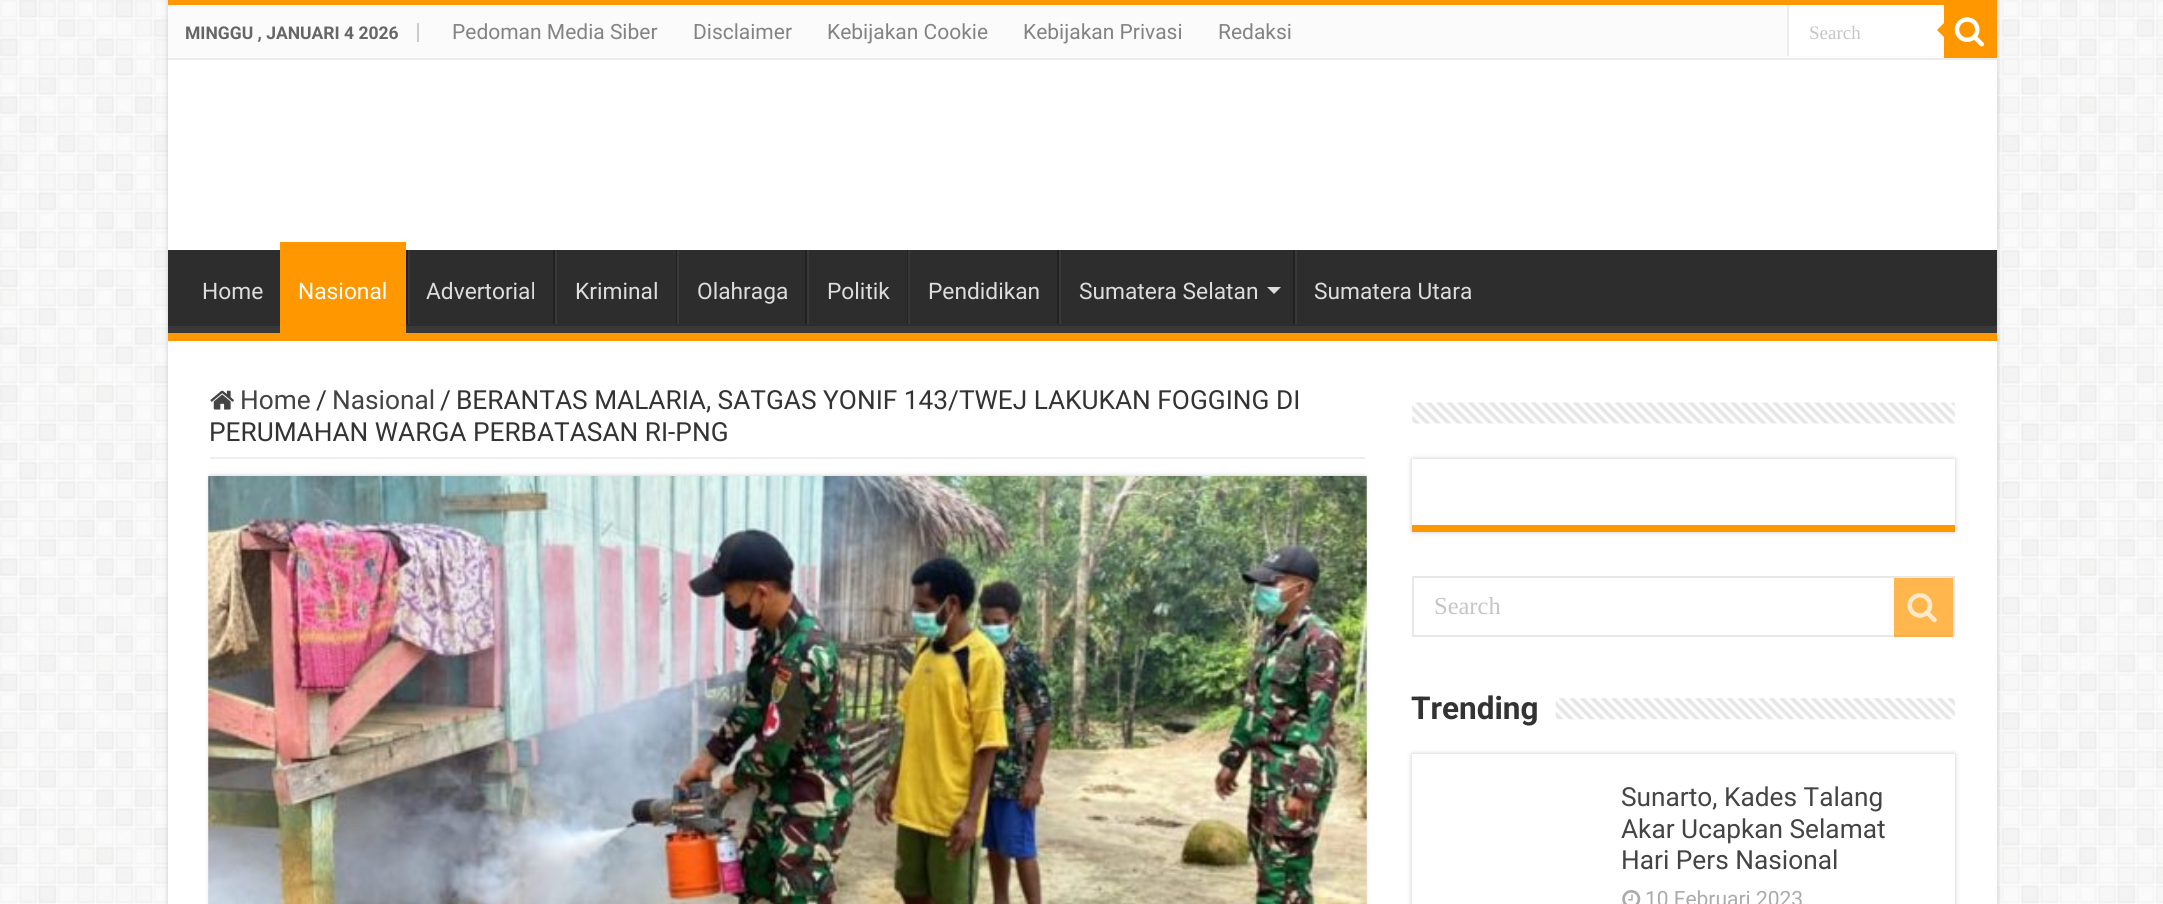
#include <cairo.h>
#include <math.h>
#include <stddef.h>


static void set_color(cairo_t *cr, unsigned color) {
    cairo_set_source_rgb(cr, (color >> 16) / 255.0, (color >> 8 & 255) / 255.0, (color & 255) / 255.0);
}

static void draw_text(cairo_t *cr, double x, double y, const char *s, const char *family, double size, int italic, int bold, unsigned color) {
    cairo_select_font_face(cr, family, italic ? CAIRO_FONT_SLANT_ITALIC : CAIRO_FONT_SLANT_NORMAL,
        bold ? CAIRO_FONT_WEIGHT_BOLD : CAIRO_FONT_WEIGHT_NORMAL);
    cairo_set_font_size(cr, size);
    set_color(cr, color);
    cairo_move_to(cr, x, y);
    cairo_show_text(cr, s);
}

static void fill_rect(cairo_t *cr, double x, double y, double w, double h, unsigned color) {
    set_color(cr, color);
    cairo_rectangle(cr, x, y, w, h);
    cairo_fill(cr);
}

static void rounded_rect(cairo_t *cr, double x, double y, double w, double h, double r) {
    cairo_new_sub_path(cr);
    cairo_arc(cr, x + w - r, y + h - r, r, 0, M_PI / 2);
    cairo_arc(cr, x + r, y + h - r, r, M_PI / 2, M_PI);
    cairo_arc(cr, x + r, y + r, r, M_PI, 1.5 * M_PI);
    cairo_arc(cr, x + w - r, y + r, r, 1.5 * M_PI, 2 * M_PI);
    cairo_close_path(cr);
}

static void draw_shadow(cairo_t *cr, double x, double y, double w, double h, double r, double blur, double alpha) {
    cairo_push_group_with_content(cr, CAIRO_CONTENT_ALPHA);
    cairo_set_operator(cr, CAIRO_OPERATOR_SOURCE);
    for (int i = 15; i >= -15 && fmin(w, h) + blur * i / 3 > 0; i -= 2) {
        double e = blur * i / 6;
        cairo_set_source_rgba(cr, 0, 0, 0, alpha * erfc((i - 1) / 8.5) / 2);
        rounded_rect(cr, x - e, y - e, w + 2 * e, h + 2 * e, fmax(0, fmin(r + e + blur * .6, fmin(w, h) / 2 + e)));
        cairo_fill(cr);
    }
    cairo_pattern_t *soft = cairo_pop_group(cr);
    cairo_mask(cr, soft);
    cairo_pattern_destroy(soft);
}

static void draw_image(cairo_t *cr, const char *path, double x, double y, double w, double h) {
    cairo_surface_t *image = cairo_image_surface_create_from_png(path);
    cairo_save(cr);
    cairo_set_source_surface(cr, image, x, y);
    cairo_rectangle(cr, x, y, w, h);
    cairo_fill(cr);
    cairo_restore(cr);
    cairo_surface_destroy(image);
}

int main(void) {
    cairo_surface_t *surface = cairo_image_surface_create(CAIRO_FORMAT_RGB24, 2163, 904);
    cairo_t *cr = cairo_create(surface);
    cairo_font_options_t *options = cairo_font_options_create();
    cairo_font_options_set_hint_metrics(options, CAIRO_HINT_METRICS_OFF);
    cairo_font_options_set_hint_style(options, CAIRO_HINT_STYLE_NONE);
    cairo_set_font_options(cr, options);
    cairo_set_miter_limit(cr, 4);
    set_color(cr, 0xFFFFFF);
    cairo_paint(cr);
    draw_image(cr, "assets/img1.png", 0, 0, 2163, 904);
    set_color(cr, 0xCACACA);
    draw_shadow(cr, 168, 0, 1829, 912, 0, 2.5, 1);
    fill_rect(cr, 168, 60, 1829, 844, 0xFFFFFF);
    fill_rect(cr, 168, 0, 1829, 5, 0xFF9800);
    fill_rect(cr, 168, 5, 1776, 53, 0xFBFBFB);
    fill_rect(cr, 168, 58, 1829, 2, 0xECECEC);
    fill_rect(cr, 417, 23, 2, 19, 0xCCCCCC);
    draw_text(cr, 185, 39, "MINGGU , JANUARI 4 2026", "Roboto", 17.5, 0, 1, 0x666666);
    draw_text(cr, 452, 39, "Pedoman Media Siber", "Roboto", 21, 0, 0, 0x838383);
    draw_text(cr, 693, 39, "Disclaimer", "Roboto", 21, 0, 0, 0x838383);
    draw_text(cr, 827, 39, "Kebijakan Cookie", "Roboto", 21, 0, 0, 0x838383);
    draw_text(cr, 1023, 39, "Kebijakan Privasi", "Roboto", 21, 0, 0, 0x838383);
    draw_text(cr, 1218, 39, "Redaksi", "Roboto", 21, 0, 0, 0x838383);
    fill_rect(cr, 1789, 5, 155, 51, 0xFFFFFF);
    fill_rect(cr, 1787, 5, 2, 51, 0xECECEC);
    cairo_save(cr);
    cairo_rectangle(cr, 1810, 21, 113, 21);
    cairo_clip(cr);
    draw_text(cr, 1809, 39, "Search", "Liberation Serif", 19, 0, 0, 0xC5C5C5);
    cairo_restore(cr);
    fill_rect(cr, 1944, 5, 53, 53, 0xFF9800);
    draw_image(cr, "assets/img2.png", 1954, 17, 30, 30);
    cairo_new_path(cr);
    cairo_move_to(cr, 1944, 23);
    cairo_line_to(cr, 1944, 37);
    cairo_line_to(cr, 1937, 30);
    cairo_close_path(cr);
    cairo_fill(cr);
    fill_rect(cr, 168, 250, 1829, 76, 0x2D2D2D);
    cairo_save(cr);
    cairo_rectangle(cr, 168, 250, 1829, 83);
    cairo_clip(cr);
    set_color(cr, 0x393939);
    cairo_set_fill_rule(cr, CAIRO_FILL_RULE_EVEN_ODD);
    cairo_new_path(cr);
    cairo_move_to(cr, -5, 77);
    cairo_line_to(cr, 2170, 77);
    cairo_line_to(cr, 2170, 506);
    cairo_line_to(cr, -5, 506);
    cairo_close_path(cr);
    cairo_move_to(cr, 166, 240);
    cairo_line_to(cr, 1995, 240);
    cairo_curve_to(cr, 1996, 240, 1997, 241, 1997, 242);
    cairo_line_to(cr, 1997, 324);
    cairo_curve_to(cr, 1997, 325, 1996, 326, 1995, 326);
    cairo_line_to(cr, 166, 326);
    cairo_curve_to(cr, 165, 326, 164, 325, 164, 324);
    cairo_line_to(cr, 164, 242);
    cairo_curve_to(cr, 164, 241, 165, 240, 166, 240);
    cairo_close_path(cr);
    cairo_fill(cr);
    cairo_restore(cr);
    fill_rect(cr, 168, 333, 1829, 8, 0xFF9800);
    draw_text(cr, 202, 299, "Home", "Roboto", 22.75, 0, 0, 0xDDDDDD);
    fill_rect(cr, 280, 242, 126, 91, 0xFF9800);
    draw_text(cr, 298, 299, "Nasional", "Roboto", 22.75, 0, 0, 0xFFFFFF);
    fill_rect(cr, 406, 250, 2, 74, 0x222222);
    fill_rect(cr, 408, 250, 2, 74, 0x383838);
    draw_text(cr, 426, 299, "Advertorial", "Roboto", 22.75, 0, 0, 0xDDDDDD);
    fill_rect(cr, 553, 250, 2, 74, 0x222222);
    fill_rect(cr, 555, 250, 2, 74, 0x383838);
    draw_text(cr, 575, 299, "Kriminal", "Roboto", 22.75, 0, 0, 0xDDDDDD);
    fill_rect(cr, 676, 250, 1, 74, 0x222222);
    fill_rect(cr, 677, 250, 2, 74, 0x383838);
    draw_text(cr, 697, 299, "Olahraga", "Roboto", 22.75, 0, 0, 0xDDDDDD);
    fill_rect(cr, 805, 250, 2, 74, 0x222222);
    fill_rect(cr, 807, 250, 2, 74, 0x383838);
    draw_text(cr, 827, 299, "Politik", "Roboto", 22.75, 0, 0, 0xDDDDDD);
    fill_rect(cr, 907, 250, 1, 74, 0x222222);
    fill_rect(cr, 908, 250, 2, 74, 0x383838);
    draw_text(cr, 928, 299, "Pendidikan", "Roboto", 22.75, 0, 0, 0xDDDDDD);
    fill_rect(cr, 1057, 250, 2, 74, 0x222222);
    fill_rect(cr, 1059, 250, 2, 74, 0x383838);
    draw_text(cr, 1079, 299, "Sumatera Selatan", "Roboto", 22.75, 0, 0, 0xDDDDDD);
    cairo_new_path(cr);
    cairo_move_to(cr, 1267, 287);
    cairo_line_to(cr, 1281, 287);
    cairo_line_to(cr, 1274, 294);
    cairo_close_path(cr);
    cairo_fill(cr);
    fill_rect(cr, 1293, 250, 2, 74, 0x222222);
    fill_rect(cr, 1295, 250, 2, 74, 0x383838);
    draw_text(cr, 1314, 299, "Sumatera Utara", "Roboto", 22.75, 0, 0, 0xDDDDDD);
    fill_rect(cr, 210, 457, 1155, 2, 0xEEEEEE);
    draw_image(cr, "assets/img3.png", 210, 390, 24, 20);
    draw_text(cr, 240, 409, "Home", "Roboto", 26.25, 0, 0, 0x444444);
    draw_text(cr, 316, 409, "/", "Roboto", 26.25, 0, 0, 0x333333);
    draw_text(cr, 332, 409, "Nasional", "Roboto", 26.25, 0, 0, 0x444444);
    draw_text(cr, 440, 409, "/", "Roboto", 26.25, 0, 0, 0x333333);
    draw_text(cr, 456, 409, "BERANTAS MALARIA, SATGAS YONIF 143/TWEJ LAKUKAN FOGGING DI", "Roboto", 26.25, 0, 0, 0x333333);
    draw_text(cr, 209, 441, "PERUMAHAN WARGA PERBATASAN RI-PNG", "Roboto", 26.25, 0, 0, 0x333333);
    set_color(cr, 0xCACACA);
    draw_shadow(cr, 210, 476, 1155, 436, 0, 2.5, 1);
    draw_image(cr, "assets/img4.png", 208, 476, 1159, 428);
    draw_image(cr, "assets/img5.png", 1412, 402, 543, 22);
    draw_shadow(cr, 1412, 459, 543, 73, 0, 2.5, 1);
    fill_rect(cr, 1412, 459, 543, 66, 0xFFFFFF);
    fill_rect(cr, 1412, 525, 543, 7, 0xFF9800);
    cairo_rectangle(cr, 1413, 577, 541, 59);
    set_color(cr, 0xE8E8E8);
    cairo_stroke(cr);
    draw_text(cr, 1434, 614, "Search", "Liberation Serif", 24.5, 0, 0, 0xC5C5C5);
    cairo_set_source_rgba(cr, 1, 0.596, 0, 0.7);
    cairo_rectangle(cr, 1894, 578, 59, 59);
    cairo_fill(cr);
    draw_image(cr, "assets/img6.png", 1907, 593, 30, 30);
    draw_text(cr, 1411, 719, "Trending", "Roboto", 31.5, 0, 1, 0x333333);
    draw_image(cr, "assets/img7.png", 1555, 698, 400, 22);
    set_color(cr, 0xCACACA);
    draw_shadow(cr, 1412, 754, 543, 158, 0, 2.5, 1);
    fill_rect(cr, 1412, 754, 543, 150, 0xFFFFFF);
    draw_text(cr, 1621, 806, "Sunarto, Kades Talang", "Roboto", 26.25, 0, 0, 0x444444);
    draw_text(cr, 1621, 838, "Akar Ucapkan Selamat", "Roboto", 26.25, 0, 0, 0x444444);
    draw_text(cr, 1621, 869, "Hari Pers Nasional", "Roboto", 26.25, 0, 0, 0x444444);
    draw_image(cr, "assets/img8.png", 1622, 890, 19, 14);
    draw_text(cr, 1645, 906, "10 Februari 2023", "Roboto", 21, 0, 0, 0xAAAAAA);
    cairo_surface_write_to_png(surface, "output.png");
    cairo_font_options_destroy(options);
    cairo_destroy(cr);
    cairo_surface_destroy(surface);
    return 0;
}
